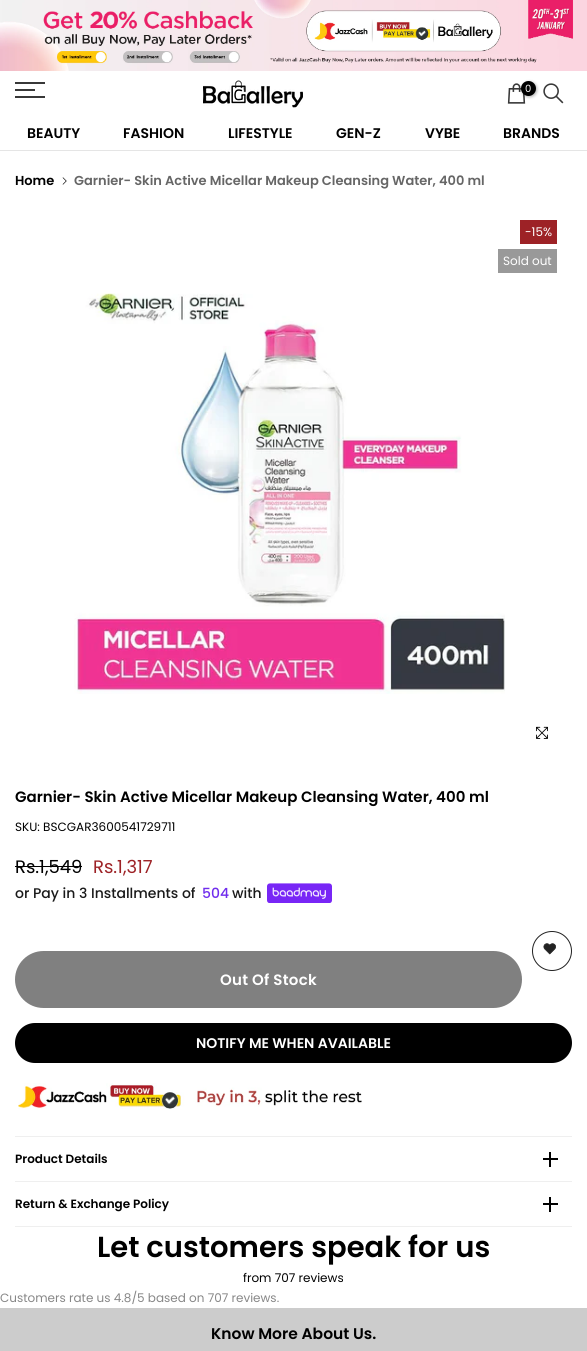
#include <cairo.h>
#include <math.h>
#include <stddef.h>


static void set_color(cairo_t *cr, unsigned color) {
    cairo_set_source_rgb(cr, (color >> 16) / 255.0, (color >> 8 & 255) / 255.0, (color & 255) / 255.0);
}

static void draw_text(cairo_t *cr, double x, double y, const char *s, const char *family, double size, int italic, int bold, unsigned color) {
    cairo_select_font_face(cr, family, italic ? CAIRO_FONT_SLANT_ITALIC : CAIRO_FONT_SLANT_NORMAL,
        bold ? CAIRO_FONT_WEIGHT_BOLD : CAIRO_FONT_WEIGHT_NORMAL);
    cairo_set_font_size(cr, size);
    set_color(cr, color);
    cairo_move_to(cr, x, y);
    cairo_show_text(cr, s);
}

static void draw_spaced(cairo_t *cr, double x, double y, const char *s, double letter, double word) {
    cairo_move_to(cr, x, y);
    while (*s) {
        char ch[5] = {0};
        int n = 0;
        do ch[n++] = *s++; while ((*s & 0xC0) == 0x80);
        cairo_show_text(cr, ch);
        cairo_rel_move_to(cr, letter + word * (*ch == ' '), 0);
    }
}

static void fill_rect(cairo_t *cr, double x, double y, double w, double h, unsigned color) {
    set_color(cr, color);
    cairo_rectangle(cr, x, y, w, h);
    cairo_fill(cr);
}

static void rounded_rect(cairo_t *cr, double x, double y, double w, double h, double r) {
    cairo_new_sub_path(cr);
    cairo_arc(cr, x + w - r, y + h - r, r, 0, M_PI / 2);
    cairo_arc(cr, x + r, y + h - r, r, M_PI / 2, M_PI);
    cairo_arc(cr, x + r, y + r, r, M_PI, 1.5 * M_PI);
    cairo_arc(cr, x + w - r, y + r, r, 1.5 * M_PI, 2 * M_PI);
    cairo_close_path(cr);
}

static void draw_shadow(cairo_t *cr, double x, double y, double w, double h, double r, double blur, double alpha) {
    cairo_push_group_with_content(cr, CAIRO_CONTENT_ALPHA);
    cairo_set_operator(cr, CAIRO_OPERATOR_SOURCE);
    for (int i = 15; i >= -15 && fmin(w, h) + blur * i / 3 > 0; i -= 2) {
        double e = blur * i / 6;
        cairo_set_source_rgba(cr, 0, 0, 0, alpha * erfc((i - 1) / 8.5) / 2);
        rounded_rect(cr, x - e, y - e, w + 2 * e, h + 2 * e, fmax(0, fmin(r + e + blur * .6, fmin(w, h) / 2 + e)));
        cairo_fill(cr);
    }
    cairo_pattern_t *soft = cairo_pop_group(cr);
    cairo_mask(cr, soft);
    cairo_pattern_destroy(soft);
}

static void draw_image(cairo_t *cr, const char *path, double x, double y, double w, double h) {
    cairo_surface_t *image = cairo_image_surface_create_from_png(path);
    cairo_save(cr);
    cairo_set_source_surface(cr, image, x, y);
    cairo_rectangle(cr, x, y, w, h);
    cairo_fill(cr);
    cairo_restore(cr);
    cairo_surface_destroy(image);
}

int main(void) {
    cairo_surface_t *surface = cairo_image_surface_create(CAIRO_FORMAT_RGB24, 587, 1351);
    cairo_t *cr = cairo_create(surface);
    cairo_font_options_t *options = cairo_font_options_create();
    cairo_font_options_set_hint_metrics(options, CAIRO_HINT_METRICS_OFF);
    cairo_font_options_set_hint_style(options, CAIRO_HINT_STYLE_NONE);
    cairo_set_font_options(cr, options);
    cairo_set_miter_limit(cr, 4);
    set_color(cr, 0xFFFFFF);
    cairo_paint(cr);
    draw_image(cr, "assets/img1.png", 0, 0, 587, 71);
    fill_rect(cr, 0, 150, 587, 1, 0xE5E5E5);
    fill_rect(cr, 15, 82, 30, 2, 0x383838);
    fill_rect(cr, 15, 89, 20, 2, 0x383838);
    fill_rect(cr, 15, 96, 30, 2, 0x383838);
    draw_image(cr, "assets/img2.png", 203, 80, 100, 28);
    draw_image(cr, "assets/img3.png", 507, 83, 19, 21);
    set_color(cr, 0x000000);
    draw_shadow(cr, 522, 82, 15, 15, 7.5, 1.5, 0.3);
    set_color(cr, 0x000000);
    cairo_arc(cr, 528.5, 88.5, 7.5, 0, 2 * M_PI);
    cairo_fill(cr);
    draw_text(cr, 525, 92, "0", "Poppins", 10, 0, 0, 0xFFFFFF);
    draw_image(cr, "assets/img4.png", 543, 83, 21, 21);
    draw_text(cr, 27, 138, "BEAUTY", "Poppins SemiBold", 14, 0, 0, 0x000000);
    draw_text(cr, 123, 138, "FASHION", "Poppins SemiBold", 14, 0, 0, 0x000000);
    draw_text(cr, 228, 138, "LIFESTYLE", "Poppins SemiBold", 14, 0, 0, 0x000000);
    draw_text(cr, 336, 138, "GEN-Z", "Poppins SemiBold", 14, 0, 0, 0x000000);
    draw_text(cr, 425, 138, "VYBE", "Poppins SemiBold", 14, 0, 0, 0x000000);
    draw_text(cr, 503, 138, "BRANDS", "Poppins SemiBold", 14, 0, 0, 0x000000);
    draw_text(cr, 15, 185, "Home", "Poppins SemiBold", 13, 0, 0, 0x000000);
    draw_image(cr, "assets/img5.png", 62, 177, 5, 8);
    draw_text(cr, 74, 185, "Garnier- Skin Active Micellar Makeup Cleansing Water, 400 ml", "Poppins SemiBold", 13, 0, 0, 0x666666);
    fill_rect(cr, 520, 220, 37, 24, 0x9D2226);
    draw_text(cr, 525, 236, "-15%", "Poppins", 12, 0, 0, 0xFFFFFF);
    fill_rect(cr, 498, 249, 59, 24, 0x999999);
    draw_text(cr, 503, 265, "Sold out", "Poppins", 12, 0, 0, 0xFFFFFF);
    draw_image(cr, "assets/img6.png", 74, 293, 431, 401);
    draw_image(cr, "assets/img7.png", 536, 726, 12, 13);
    draw_text(cr, 15, 802, "Garnier- Skin Active Micellar Makeup Cleansing Water, 400 ml", "Poppins SemiBold", 15, 0, 0, 0x000000);
    draw_text(cr, 15, 831, "SKU: BSCGAR3600541729711", "Poppins", 12, 0, 0, 0x000000);
    draw_text(cr, 15, 873, "Rs.1,549", "Poppins", 18, 0, 0, 0x000000);
    fill_rect(cr, 15, 866, 67, 1, 0x000000);
    draw_text(cr, 93, 873, "Rs.1,317", "Poppins", 18, 0, 0, 0x9D2226);
    draw_text(cr, 15, 898, "or Pay in 3 Installments of", "Poppins Medium", 14, 0, 0, 0x1A1A1A);
    draw_text(cr, 202, 898, "504", "Poppins Medium", 14, 0, 0, 0x702DED);
    draw_text(cr, 232, 898, "with", "Poppins Medium", 14, 0, 0, 0x1A1A1A);
    draw_image(cr, "assets/img8.png", 267, 883, 65, 20);
    cairo_arc(cr, 552, 951, 19.5, 0, 2 * M_PI);
    set_color(cr, 0x222222);
    cairo_set_line_width(cr, 1);
    cairo_stroke(cr);
    draw_image(cr, "assets/img9.png", 543, 943, 13, 12);
    set_color(cr, 0x808080);
    rounded_rect(cr, 15, 951, 507, 57, 28.5);
    cairo_fill(cr);
    cairo_select_font_face(cr, "Poppins SemiBold", CAIRO_FONT_SLANT_NORMAL, CAIRO_FONT_WEIGHT_NORMAL);
    cairo_set_font_size(cr, 15);
    set_color(cr, 0xFFFFFF);
    draw_spaced(cr, 220, 985, "Out Of Stock", 0.25, 0);
    set_color(cr, 0x000000);
    rounded_rect(cr, 15, 1023, 557, 40, 20);
    cairo_fill(cr);
    draw_text(cr, 196, 1048, "NOTIFY ME WHEN AVAILABLE", "Poppins SemiBold", 14, 0, 0, 0xFFFFFF);
    draw_image(cr, "assets/img10.png", 18, 1083, 344, 27);
    fill_rect(cr, 15, 1136, 557, 1, 0xEFEFEF);
    fill_rect(cr, 15, 1181, 557, 1, 0xEFEFEF);
    draw_text(cr, 15, 1163, "Product Details", "Poppins SemiBold", 12, 0, 0, 0x000000);
    fill_rect(cr, 549, 1152, 2, 15, 0x000000);
    fill_rect(cr, 543, 1158, 15, 2, 0x000000);
    fill_rect(cr, 15, 1226, 557, 1, 0xEFEFEF);
    draw_text(cr, 15, 1208, "Return & Exchange Policy", "Poppins SemiBold", 12, 0, 0, 0x000000);
    fill_rect(cr, 549, 1197, 2, 15, 0x000000);
    fill_rect(cr, 543, 1203, 15, 2, 0x000000);
    draw_text(cr, 97, 1257, "Let customers speak for us", "Poppins SemiBold", 29, 0, 0, 0x000000);
    draw_text(cr, 243, 1282, "from 707 reviews", "Poppins", 12, 0, 0, 0x000000);
    draw_text(cr, 0, 1302, "Customers rate us 4.8/5 based on 707 reviews.", "Poppins", 12, 0, 0, 0x878787);
    fill_rect(cr, 0, 1308, 587, 43, 0xCCCCCC);
    draw_text(cr, 211, 1339, "Know More About Us.", "Poppins SemiBold", 15.5, 0, 0, 0x000000);
    cairo_surface_write_to_png(surface, "output.png");
    cairo_font_options_destroy(options);
    cairo_destroy(cr);
    cairo_surface_destroy(surface);
    return 0;
}
